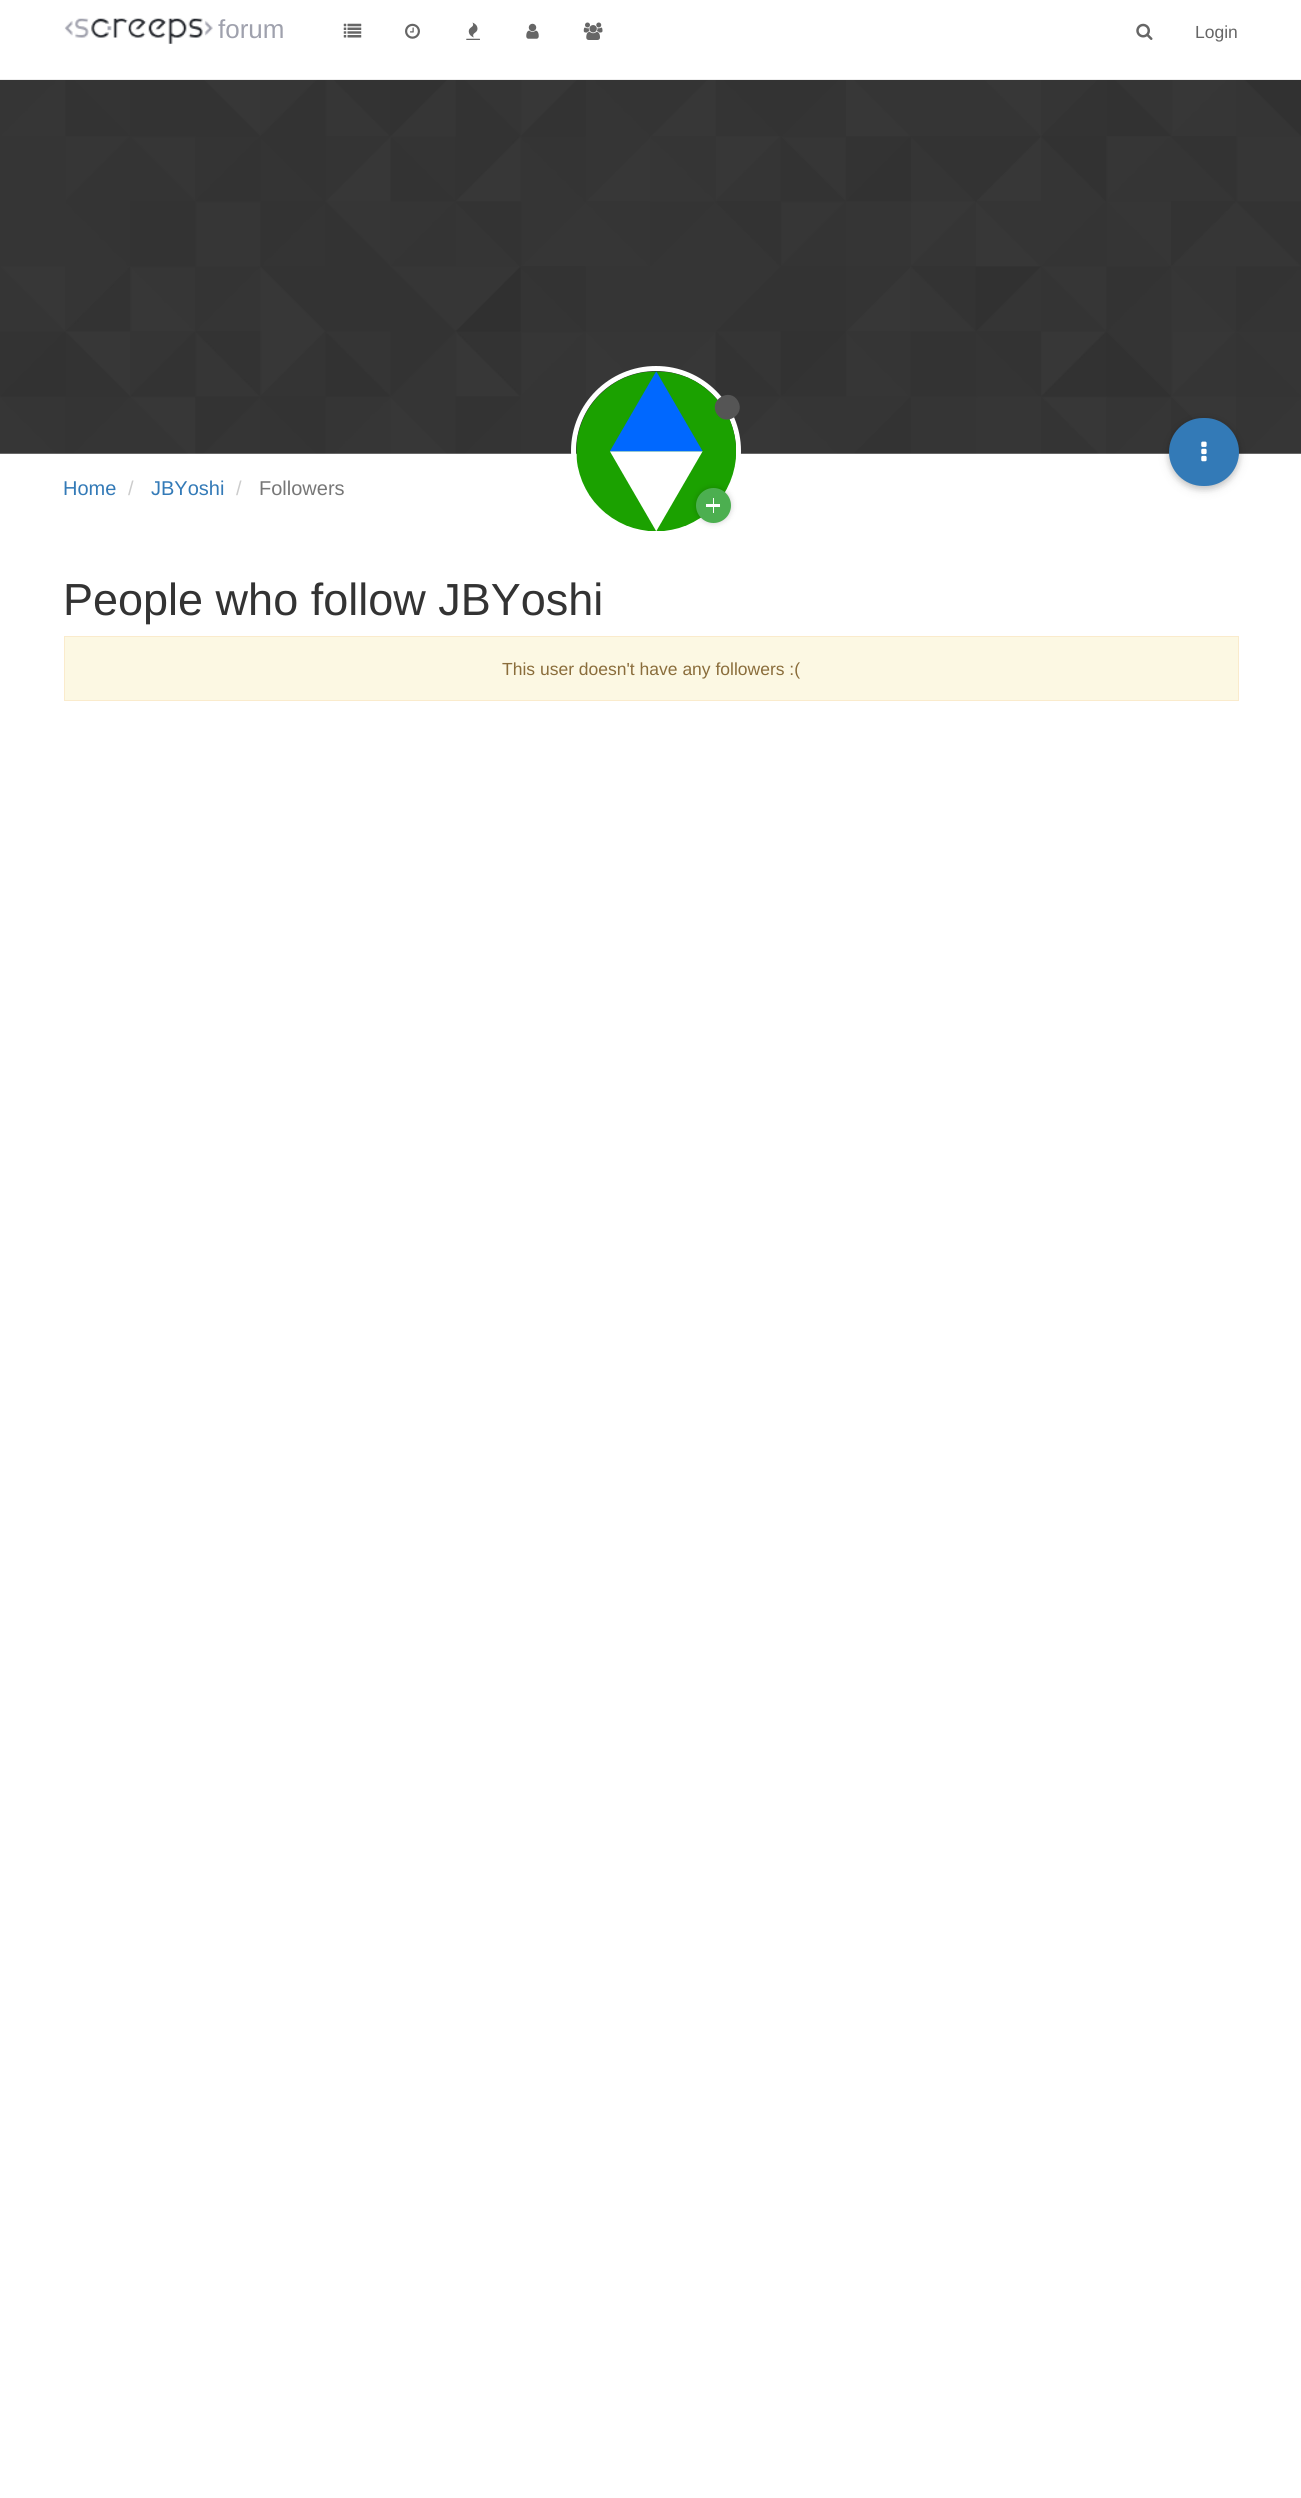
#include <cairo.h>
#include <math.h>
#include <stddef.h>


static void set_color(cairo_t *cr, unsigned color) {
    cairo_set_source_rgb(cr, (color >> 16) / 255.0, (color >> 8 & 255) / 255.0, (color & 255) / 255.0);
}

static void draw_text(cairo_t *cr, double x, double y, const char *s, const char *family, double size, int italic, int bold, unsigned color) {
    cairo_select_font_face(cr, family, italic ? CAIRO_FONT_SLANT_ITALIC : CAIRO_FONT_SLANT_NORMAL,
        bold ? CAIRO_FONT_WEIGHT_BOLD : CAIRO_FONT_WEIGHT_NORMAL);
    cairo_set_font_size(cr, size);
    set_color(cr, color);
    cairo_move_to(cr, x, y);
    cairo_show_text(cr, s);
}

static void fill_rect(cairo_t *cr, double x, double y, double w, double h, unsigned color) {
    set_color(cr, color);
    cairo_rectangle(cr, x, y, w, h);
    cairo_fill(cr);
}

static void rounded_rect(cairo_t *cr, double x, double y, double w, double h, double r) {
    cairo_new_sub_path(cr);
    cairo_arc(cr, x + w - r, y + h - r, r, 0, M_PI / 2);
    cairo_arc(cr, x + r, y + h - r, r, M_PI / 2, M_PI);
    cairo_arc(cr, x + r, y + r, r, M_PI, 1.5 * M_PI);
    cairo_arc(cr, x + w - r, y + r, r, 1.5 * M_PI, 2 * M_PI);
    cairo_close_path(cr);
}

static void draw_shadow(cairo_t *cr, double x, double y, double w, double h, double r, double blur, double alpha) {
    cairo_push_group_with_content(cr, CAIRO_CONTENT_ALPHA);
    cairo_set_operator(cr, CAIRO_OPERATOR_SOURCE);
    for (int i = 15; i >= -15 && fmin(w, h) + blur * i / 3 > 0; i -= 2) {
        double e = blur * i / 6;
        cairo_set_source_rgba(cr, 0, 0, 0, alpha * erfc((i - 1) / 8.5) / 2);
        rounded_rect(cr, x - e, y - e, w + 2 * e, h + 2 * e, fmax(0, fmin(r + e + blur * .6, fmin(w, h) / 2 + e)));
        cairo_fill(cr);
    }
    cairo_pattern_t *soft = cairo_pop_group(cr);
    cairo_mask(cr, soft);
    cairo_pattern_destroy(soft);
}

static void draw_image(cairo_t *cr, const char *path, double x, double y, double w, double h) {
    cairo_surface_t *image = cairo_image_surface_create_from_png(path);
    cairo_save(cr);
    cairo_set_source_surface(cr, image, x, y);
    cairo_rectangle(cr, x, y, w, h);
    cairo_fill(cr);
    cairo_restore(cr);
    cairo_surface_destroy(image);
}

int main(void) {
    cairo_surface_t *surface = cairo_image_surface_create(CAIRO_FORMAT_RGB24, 1301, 2498);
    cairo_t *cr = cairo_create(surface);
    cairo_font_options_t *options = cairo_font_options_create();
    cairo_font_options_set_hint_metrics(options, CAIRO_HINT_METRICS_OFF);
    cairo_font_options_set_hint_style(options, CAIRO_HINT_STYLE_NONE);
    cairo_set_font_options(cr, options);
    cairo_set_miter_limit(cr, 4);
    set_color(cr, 0xFFFFFF);
    cairo_paint(cr);
    fill_rect(cr, 0, 79, 1301, 1, 0xEEEEEE);
    draw_image(cr, "assets/img1.png", 64, 18, 149, 26);
    draw_text(cr, 218, 38, "forum", "Liberation Sans", 26, 0, 0, 0x9FA1AD);
    draw_image(cr, "assets/img2.png", 343, 23, 19, 15);
    draw_image(cr, "assets/img3.png", 405, 23, 15, 16);
    draw_image(cr, "assets/img4.png", 466, 22, 14, 18);
    draw_image(cr, "assets/img5.png", 526, 23, 13, 16);
    draw_image(cr, "assets/img6.png", 583, 22, 20, 18);
    draw_image(cr, "assets/img7.png", 1136, 23, 17, 17);
    draw_text(cr, 1195, 38, "Login", "Liberation Sans", 17.5, 0, 0, 0x666666);
    draw_image(cr, "assets/img8.png", 0, 80, 1301, 374);
    cairo_arc(cr, 656, 451, 82.5, 0, 2 * M_PI);
    set_color(cr, 0xFFFFFF);
    cairo_set_line_width(cr, 5);
    cairo_stroke(cr);
    draw_image(cr, "assets/img9.png", 576, 371, 160, 160);
    set_color(cr, 0x555555);
    cairo_new_path(cr);
    cairo_move_to(cr, 738, 401);
    cairo_curve_to(cr, 746, 415, 725, 427.5, 716.5, 413.5);
    cairo_curve_to(cr, 708.5, 399.5, 730, 387, 738, 401);
    cairo_close_path(cr);
    cairo_fill(cr);
    set_color(cr, 0x000000);
    draw_shadow(cr, 696, 488, 35, 35, 17.5, 3, 0.2);
    set_color(cr, 0x4CAF50);
    cairo_arc(cr, 713.5, 505.5, 17.5, 0, 2 * M_PI);
    cairo_fill(cr);
    fill_rect(cr, 706, 504, 14, 3, 0xFFFFFF);
    fill_rect(cr, 713, 498, 1, 15, 0xFFFFFF);
    set_color(cr, 0x000000);
    draw_shadow(cr, 1169, 420, 70, 69, 34.5, 6, 0.12);
    draw_shadow(cr, 1169, 420, 70, 69, 34.5, 3, 0.16);
    set_color(cr, 0x337AB7);
    rounded_rect(cr, 1169, 418, 70, 68, 34);
    cairo_fill(cr);
    draw_image(cr, "assets/img10.png", 1201, 441, 6, 21);
    draw_text(cr, 63, 495, "Home", "Liberation Sans", 20, 0, 0, 0x337AB7);
    draw_text(cr, 128, 495, "/", "Liberation Sans", 20, 0, 0, 0xCCCCCC);
    draw_text(cr, 151, 495, "JBYoshi", "Liberation Sans", 20, 0, 0, 0x337AB7);
    draw_text(cr, 236, 495, "/", "Liberation Sans", 20, 0, 0, 0xCCCCCC);
    draw_text(cr, 259, 495, "Followers", "Liberation Sans", 20, 0, 0, 0x777777);
    draw_text(cr, 63, 615, "People who follow JBYoshi", "Liberation Sans", 45, 0, 0, 0x333333);
    set_color(cr, 0xFCF8E3);
    cairo_rectangle(cr, 64.5, 636.5, 1174, 64);
    cairo_fill_preserve(cr);
    set_color(cr, 0xFAEBCC);
    cairo_set_line_width(cr, 1);
    cairo_stroke(cr);
    draw_text(cr, 502, 675, "This user doesn't have any followers :(", "Liberation Sans", 17.5, 0, 0, 0x8A6D3B);
    cairo_surface_write_to_png(surface, "output.png");
    cairo_font_options_destroy(options);
    cairo_destroy(cr);
    cairo_surface_destroy(surface);
    return 0;
}
